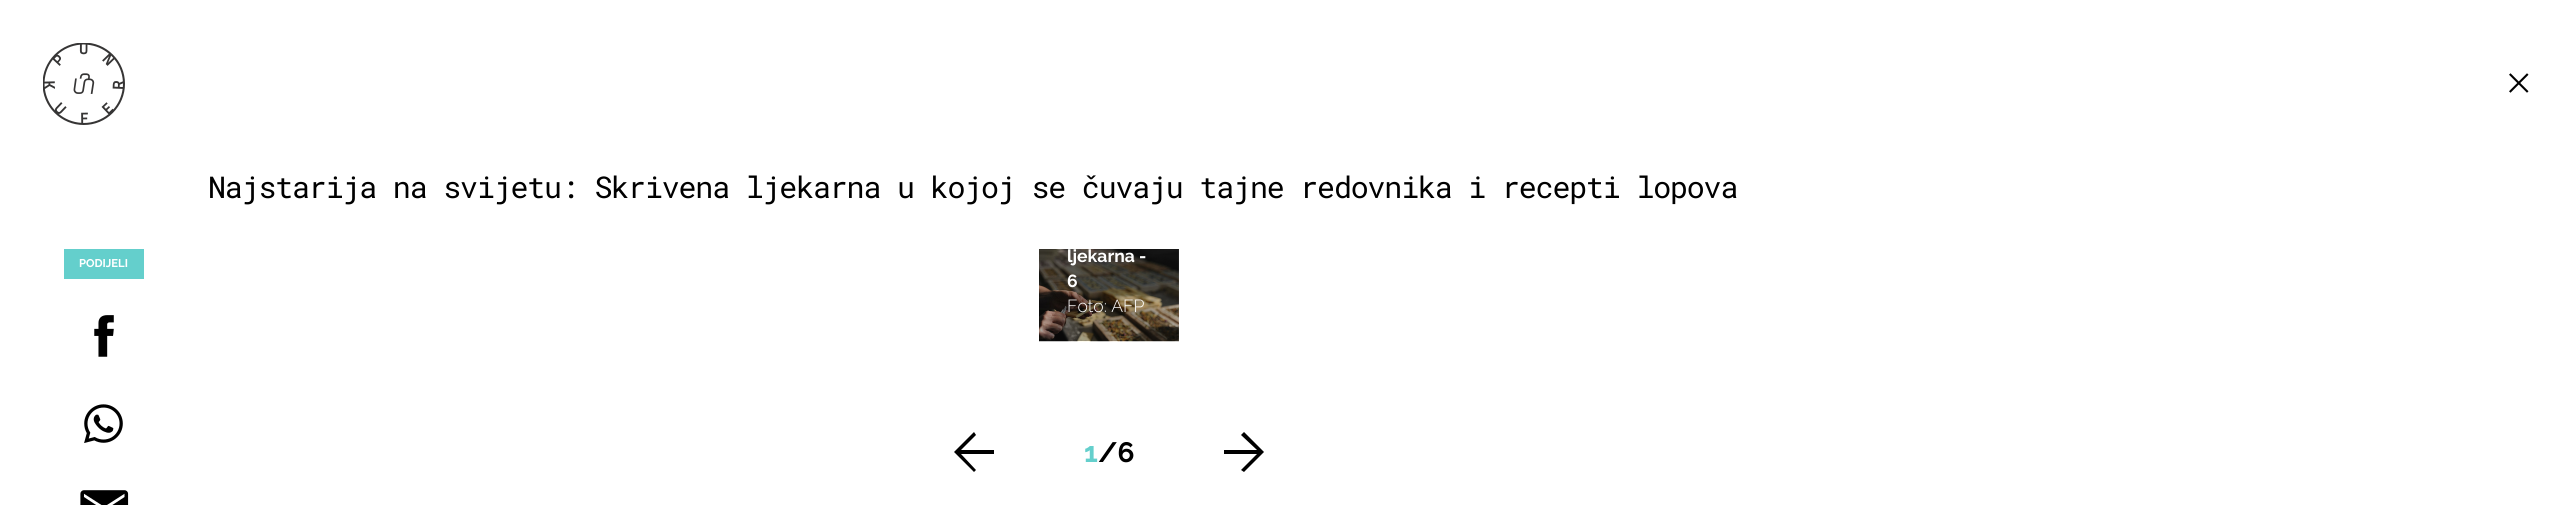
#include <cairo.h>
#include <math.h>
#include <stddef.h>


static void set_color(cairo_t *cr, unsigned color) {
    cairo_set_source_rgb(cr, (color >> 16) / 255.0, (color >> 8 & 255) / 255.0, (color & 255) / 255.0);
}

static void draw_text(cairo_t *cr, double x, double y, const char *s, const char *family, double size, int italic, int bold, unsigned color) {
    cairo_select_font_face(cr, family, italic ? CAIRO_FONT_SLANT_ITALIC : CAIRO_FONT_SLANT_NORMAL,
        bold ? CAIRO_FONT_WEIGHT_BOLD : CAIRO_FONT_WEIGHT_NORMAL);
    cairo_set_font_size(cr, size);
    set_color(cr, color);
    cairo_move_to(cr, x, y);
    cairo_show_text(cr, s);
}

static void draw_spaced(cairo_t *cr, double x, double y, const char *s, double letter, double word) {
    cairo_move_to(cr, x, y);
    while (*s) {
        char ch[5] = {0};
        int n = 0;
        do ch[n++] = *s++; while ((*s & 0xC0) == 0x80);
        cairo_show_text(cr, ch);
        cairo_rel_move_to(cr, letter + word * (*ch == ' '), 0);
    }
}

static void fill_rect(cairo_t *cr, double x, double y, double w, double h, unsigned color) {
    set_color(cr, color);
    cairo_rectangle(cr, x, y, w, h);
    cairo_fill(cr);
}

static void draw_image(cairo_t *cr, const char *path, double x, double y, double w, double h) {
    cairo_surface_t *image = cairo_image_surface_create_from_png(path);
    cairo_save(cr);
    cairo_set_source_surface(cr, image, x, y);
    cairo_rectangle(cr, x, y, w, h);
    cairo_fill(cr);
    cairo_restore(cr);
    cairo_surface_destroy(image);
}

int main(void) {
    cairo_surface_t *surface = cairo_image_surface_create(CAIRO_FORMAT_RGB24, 2564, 505);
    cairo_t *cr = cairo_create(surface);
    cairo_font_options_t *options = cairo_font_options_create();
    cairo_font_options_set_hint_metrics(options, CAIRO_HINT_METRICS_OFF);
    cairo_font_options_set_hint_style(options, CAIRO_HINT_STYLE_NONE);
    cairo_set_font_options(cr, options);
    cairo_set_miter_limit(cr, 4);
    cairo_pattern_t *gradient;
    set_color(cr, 0xFFFFFF);
    cairo_paint(cr);
    draw_image(cr, "assets/img1.png", 43, 43, 82, 82);
    draw_image(cr, "assets/img2.png", 2509, 73, 20, 20);
    cairo_select_font_face(cr, "Roboto Mono", CAIRO_FONT_SLANT_NORMAL, CAIRO_FONT_WEIGHT_NORMAL);
    cairo_set_font_size(cr, 30);
    set_color(cr, 0x000000);
    draw_spaced(cr, 208, 198, "Najstarija na svijetu: Skrivena ljekarna u kojoj se čuvaju tajne redovnika i recepti lopova", -1.2, 0);
    fill_rect(cr, 64, 249, 80, 30, 0x64CFCC);
    draw_text(cr, 79, 267, "PODIJELI", "Raleway", 11.25, 0, 1, 0xFFFFFF);
    draw_image(cr, "assets/img3.png", 94, 315, 20, 42);
    draw_image(cr, "assets/img4.png", 84, 404, 39, 39);
    draw_image(cr, "assets/img5.png", 80, 490, 49, 15);
    draw_image(cr, "assets/img6.png", 1039, 249, 140, 93);
    gradient = cairo_pattern_create_linear(1109, 341, 1109, 144);
    cairo_pattern_add_color_stop_rgba(gradient, 0, 0.078, 0.078, 0.078, 0.4);
    cairo_pattern_add_color_stop_rgba(gradient, 1, 0.078, 0.078, 0.078, 0);
    cairo_set_source(cr, gradient);
    cairo_pattern_destroy(gradient);
    cairo_rectangle(cr, 1039, 249, 140, 92);
    cairo_fill(cr);
    draw_text(cr, 1067, 262, "ljekarna -", "Raleway", 17.5, 0, 1, 0xFFFFFF);
    draw_text(cr, 1067, 287, "6", "Raleway", 17.5, 0, 1, 0xFFFFFF);
    draw_text(cr, 1067, 312, "Foto: AFP", "Raleway Light", 17.5, 0, 0, 0xFFFFFF);
    set_color(cr, 0x000000);
    cairo_new_path(cr);
    cairo_move_to(cr, 974, 472);
    cairo_line_to(cr, 976, 470);
    cairo_line_to(cr, 961, 454);
    cairo_line_to(cr, 994, 454);
    cairo_line_to(cr, 994, 450);
    cairo_line_to(cr, 961, 450);
    cairo_line_to(cr, 976, 435);
    cairo_line_to(cr, 974, 432);
    cairo_line_to(cr, 954, 452);
    cairo_close_path(cr);
    cairo_fill(cr);
    draw_text(cr, 1084, 462, "1", "Raleway", 28, 0, 1, 0x64CFCC);
    draw_text(cr, 1098, 462, "/6", "Raleway", 28, 0, 1, 0x000000);
    cairo_new_path(cr);
    cairo_move_to(cr, 1244, 472);
    cairo_line_to(cr, 1241, 470);
    cairo_line_to(cr, 1257, 454);
    cairo_line_to(cr, 1224, 454);
    cairo_line_to(cr, 1224, 450);
    cairo_line_to(cr, 1257, 450);
    cairo_line_to(cr, 1241, 435);
    cairo_line_to(cr, 1244, 432);
    cairo_line_to(cr, 1264, 452);
    cairo_close_path(cr);
    cairo_fill(cr);
    cairo_surface_write_to_png(surface, "output.png");
    cairo_font_options_destroy(options);
    cairo_destroy(cr);
    cairo_surface_destroy(surface);
    return 0;
}
